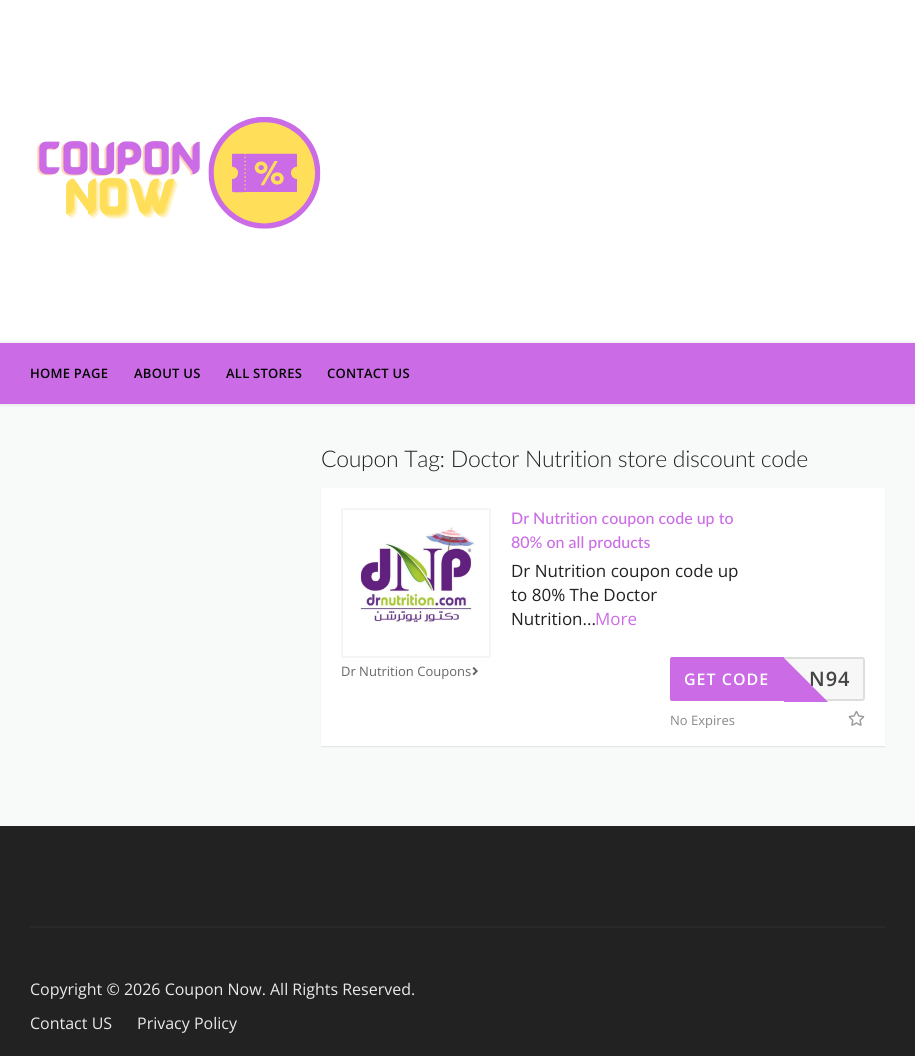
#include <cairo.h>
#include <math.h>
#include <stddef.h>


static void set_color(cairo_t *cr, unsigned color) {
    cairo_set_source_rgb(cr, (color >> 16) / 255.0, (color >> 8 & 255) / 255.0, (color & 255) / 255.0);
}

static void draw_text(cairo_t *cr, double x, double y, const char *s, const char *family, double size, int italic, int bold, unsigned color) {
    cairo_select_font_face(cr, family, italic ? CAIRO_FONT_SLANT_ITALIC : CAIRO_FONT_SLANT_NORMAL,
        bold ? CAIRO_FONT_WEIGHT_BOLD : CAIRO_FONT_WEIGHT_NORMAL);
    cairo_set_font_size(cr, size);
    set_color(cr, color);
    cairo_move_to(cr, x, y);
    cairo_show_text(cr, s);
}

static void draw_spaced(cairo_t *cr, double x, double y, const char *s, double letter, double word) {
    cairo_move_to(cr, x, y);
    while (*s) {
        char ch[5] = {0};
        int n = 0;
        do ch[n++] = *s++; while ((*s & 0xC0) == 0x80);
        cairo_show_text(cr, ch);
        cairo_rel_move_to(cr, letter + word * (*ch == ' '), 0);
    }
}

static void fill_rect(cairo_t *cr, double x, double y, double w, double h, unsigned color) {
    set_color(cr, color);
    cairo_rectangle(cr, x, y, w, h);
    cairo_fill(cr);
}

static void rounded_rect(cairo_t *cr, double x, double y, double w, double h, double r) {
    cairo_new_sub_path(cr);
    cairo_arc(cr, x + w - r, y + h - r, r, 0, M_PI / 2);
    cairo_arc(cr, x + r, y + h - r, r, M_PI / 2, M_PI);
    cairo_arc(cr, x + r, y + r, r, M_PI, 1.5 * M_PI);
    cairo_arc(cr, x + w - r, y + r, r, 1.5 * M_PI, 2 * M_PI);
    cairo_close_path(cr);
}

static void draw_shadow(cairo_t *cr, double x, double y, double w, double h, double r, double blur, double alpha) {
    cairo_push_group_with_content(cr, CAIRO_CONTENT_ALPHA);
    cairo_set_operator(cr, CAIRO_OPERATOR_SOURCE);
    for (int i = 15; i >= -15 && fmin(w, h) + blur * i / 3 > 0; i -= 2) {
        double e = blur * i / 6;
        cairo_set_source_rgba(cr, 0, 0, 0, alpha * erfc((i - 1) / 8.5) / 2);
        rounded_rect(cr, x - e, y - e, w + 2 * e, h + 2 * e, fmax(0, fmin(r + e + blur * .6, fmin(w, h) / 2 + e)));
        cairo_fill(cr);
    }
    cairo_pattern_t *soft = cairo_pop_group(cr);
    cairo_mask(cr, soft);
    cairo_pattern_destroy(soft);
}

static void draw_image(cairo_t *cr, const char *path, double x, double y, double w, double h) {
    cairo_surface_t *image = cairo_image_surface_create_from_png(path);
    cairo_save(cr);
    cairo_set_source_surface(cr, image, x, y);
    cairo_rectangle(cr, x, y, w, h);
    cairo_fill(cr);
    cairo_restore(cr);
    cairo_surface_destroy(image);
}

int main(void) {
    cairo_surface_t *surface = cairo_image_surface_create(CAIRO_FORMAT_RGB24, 915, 1056);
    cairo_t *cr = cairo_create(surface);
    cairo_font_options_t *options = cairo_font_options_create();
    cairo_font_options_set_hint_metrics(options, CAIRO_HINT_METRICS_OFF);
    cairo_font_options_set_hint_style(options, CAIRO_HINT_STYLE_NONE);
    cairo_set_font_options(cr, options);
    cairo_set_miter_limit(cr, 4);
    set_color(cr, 0xF8F9F9);
    cairo_paint(cr);
    fill_rect(cr, 0, 0, 915, 343, 0xFFFFFF);
    draw_image(cr, "assets/img1.png", 37, 116, 284, 113);
    set_color(cr, 0x000000);
    draw_shadow(cr, 0, 343, 915, 61, 0, 2.5, 0.12);
    fill_rect(cr, 0, 343, 915, 61, 0xCB6CE6);
    cairo_select_font_face(cr, "Open Sans SemiBold", CAIRO_FONT_SLANT_NORMAL, CAIRO_FONT_WEIGHT_NORMAL);
    cairo_set_font_size(cr, 13);
    set_color(cr, 0x000000);
    draw_spaced(cr, 30, 378, "HOME PAGE", 0.25, 0);
    draw_spaced(cr, 134, 378, "ABOUT US", 0.25, 0);
    draw_spaced(cr, 226, 378, "ALL STORES", 0.25, 0);
    draw_spaced(cr, 327, 378, "CONTACT US", 0.25, 0);
    cairo_select_font_face(cr, "Lato Light", CAIRO_FONT_SLANT_NORMAL, CAIRO_FONT_WEIGHT_NORMAL);
    cairo_set_font_size(cr, 23);
    set_color(cr, 0x212121);
    draw_spaced(cr, 321, 467, "Coupon Tag: Doctor Nutrition store discount code", -0.3, 0);
    set_color(cr, 0x000000);
    draw_shadow(cr, 321, 489, 564, 258, 0, 0.5, 0.08);
    fill_rect(cr, 321, 488, 564, 258, 0xFFFFFF);
    draw_text(cr, 511, 524, "Dr Nutrition coupon code up to", "Lato Medium", 16, 0, 0, 0xCB6CE6);
    draw_text(cr, 511, 548, "80% on all products", "Lato Medium", 16, 0, 0, 0xCB6CE6);
    draw_text(cr, 511, 577, "Dr Nutrition coupon code up", "Open Sans", 17, 0, 0, 0x212121);
    draw_text(cr, 511, 601, "to 80% The Doctor", "Open Sans", 17, 0, 0, 0x212121);
    draw_text(cr, 511, 625, "Nutrition...", "Open Sans", 17, 0, 0, 0x212121);
    draw_text(cr, 595, 625, "More", "Open Sans", 17, 0, 0, 0xCB6CE6);
    rounded_rect(cr, 342, 509, 148, 148, 1);
    set_color(cr, 0xF5F5F5);
    cairo_stroke(cr);
    draw_image(cr, "assets/img2.png", 360, 527, 116, 98);
    draw_text(cr, 341, 676, "Dr Nutrition Coupons", "Open Sans", 13, 0, 0, 0x666666);
    draw_image(cr, "assets/img3.png", 472, 667, 6, 9);
    set_color(cr, 0xF7F7F7);
    rounded_rect(cr, 671, 658, 193, 42, 2);
    cairo_fill_preserve(cr);
    set_color(cr, 0xDDDDDD);
    cairo_stroke(cr);
    set_color(cr, 0xCB6CE6);
    cairo_new_path(cr);
    cairo_move_to(cr, 672, 657);
    cairo_line_to(cr, 784, 657);
    cairo_line_to(cr, 784, 701);
    cairo_line_to(cr, 672, 701);
    cairo_curve_to(cr, 671, 701, 670, 700, 670, 699);
    cairo_line_to(cr, 670, 659);
    cairo_curve_to(cr, 670, 658, 671, 657, 672, 657);
    cairo_close_path(cr);
    cairo_fill(cr);
    cairo_select_font_face(cr, "Open Sans SemiBold", CAIRO_FONT_SLANT_NORMAL, CAIRO_FONT_WEIGHT_NORMAL);
    cairo_set_font_size(cr, 16);
    set_color(cr, 0xFFFFFF);
    draw_spaced(cr, 684, 685, "GET CODE", 1, 0);
    cairo_set_font_size(cr, 20);
    set_color(cr, 0x444444);
    draw_spaced(cr, 809, 686, "N94", 1, 0);
    set_color(cr, 0xCB6CE6);
    cairo_new_path(cr);
    cairo_move_to(cr, 784, 702);
    cairo_line_to(cr, 784, 658);
    cairo_line_to(cr, 828, 702);
    cairo_close_path(cr);
    cairo_fill(cr);
    draw_text(cr, 670, 725, "No Expires", "Open Sans", 13, 0, 0, 0x888888);
    draw_image(cr, "assets/img4.png", 848, 710, 17, 16);
    fill_rect(cr, 0, 826, 915, 230, 0x222222);
    fill_rect(cr, 30, 926, 855, 2, 0x292929);
    draw_text(cr, 30, 995, "Copyright © 2026 Coupon Now. All Rights Reserved.", "Open Sans", 16, 0, 0, 0xE9E9E9);
    draw_text(cr, 30, 1029, "Contact US", "Open Sans", 16, 0, 0, 0xE9E9E9);
    draw_text(cr, 137, 1029, "Privacy Policy", "Open Sans", 16, 0, 0, 0xE9E9E9);
    cairo_surface_write_to_png(surface, "output.png");
    cairo_font_options_destroy(options);
    cairo_destroy(cr);
    cairo_surface_destroy(surface);
    return 0;
}
